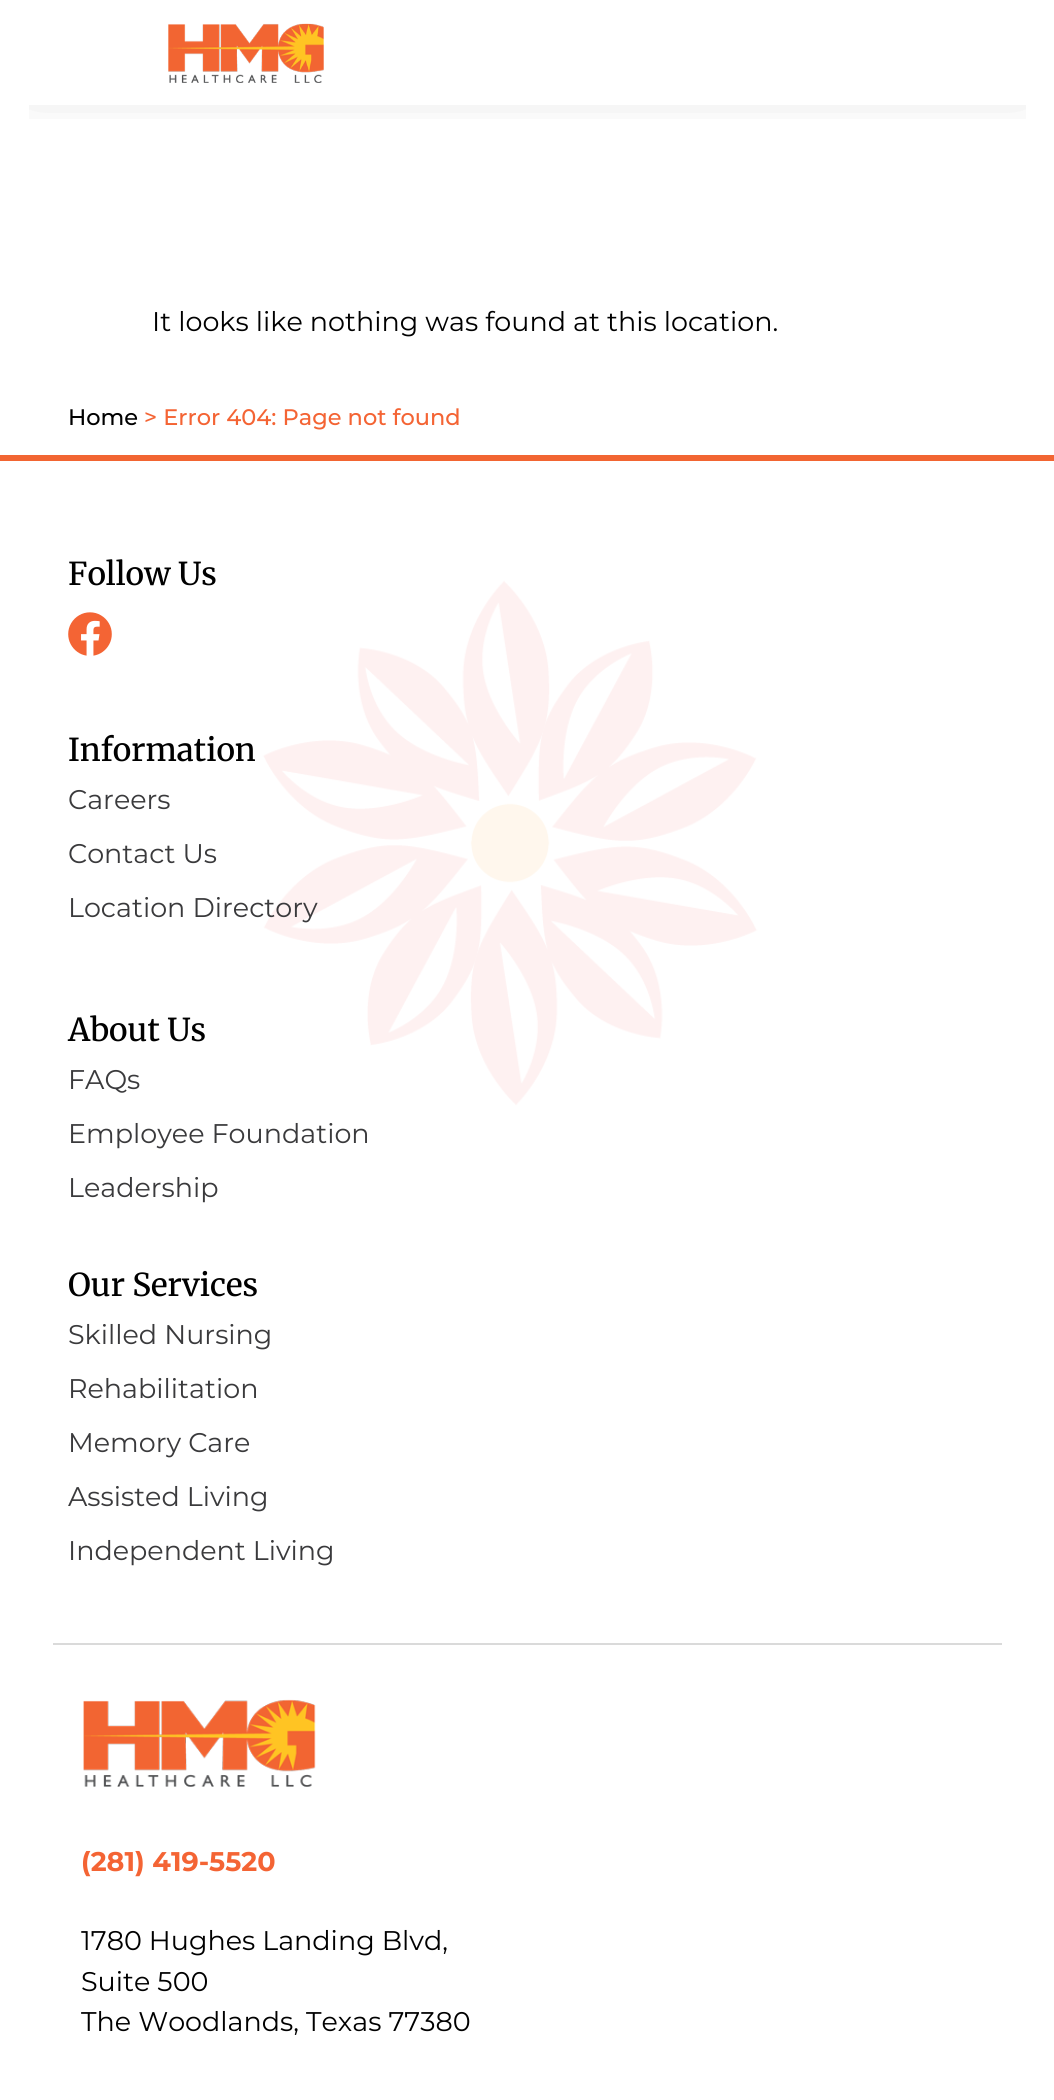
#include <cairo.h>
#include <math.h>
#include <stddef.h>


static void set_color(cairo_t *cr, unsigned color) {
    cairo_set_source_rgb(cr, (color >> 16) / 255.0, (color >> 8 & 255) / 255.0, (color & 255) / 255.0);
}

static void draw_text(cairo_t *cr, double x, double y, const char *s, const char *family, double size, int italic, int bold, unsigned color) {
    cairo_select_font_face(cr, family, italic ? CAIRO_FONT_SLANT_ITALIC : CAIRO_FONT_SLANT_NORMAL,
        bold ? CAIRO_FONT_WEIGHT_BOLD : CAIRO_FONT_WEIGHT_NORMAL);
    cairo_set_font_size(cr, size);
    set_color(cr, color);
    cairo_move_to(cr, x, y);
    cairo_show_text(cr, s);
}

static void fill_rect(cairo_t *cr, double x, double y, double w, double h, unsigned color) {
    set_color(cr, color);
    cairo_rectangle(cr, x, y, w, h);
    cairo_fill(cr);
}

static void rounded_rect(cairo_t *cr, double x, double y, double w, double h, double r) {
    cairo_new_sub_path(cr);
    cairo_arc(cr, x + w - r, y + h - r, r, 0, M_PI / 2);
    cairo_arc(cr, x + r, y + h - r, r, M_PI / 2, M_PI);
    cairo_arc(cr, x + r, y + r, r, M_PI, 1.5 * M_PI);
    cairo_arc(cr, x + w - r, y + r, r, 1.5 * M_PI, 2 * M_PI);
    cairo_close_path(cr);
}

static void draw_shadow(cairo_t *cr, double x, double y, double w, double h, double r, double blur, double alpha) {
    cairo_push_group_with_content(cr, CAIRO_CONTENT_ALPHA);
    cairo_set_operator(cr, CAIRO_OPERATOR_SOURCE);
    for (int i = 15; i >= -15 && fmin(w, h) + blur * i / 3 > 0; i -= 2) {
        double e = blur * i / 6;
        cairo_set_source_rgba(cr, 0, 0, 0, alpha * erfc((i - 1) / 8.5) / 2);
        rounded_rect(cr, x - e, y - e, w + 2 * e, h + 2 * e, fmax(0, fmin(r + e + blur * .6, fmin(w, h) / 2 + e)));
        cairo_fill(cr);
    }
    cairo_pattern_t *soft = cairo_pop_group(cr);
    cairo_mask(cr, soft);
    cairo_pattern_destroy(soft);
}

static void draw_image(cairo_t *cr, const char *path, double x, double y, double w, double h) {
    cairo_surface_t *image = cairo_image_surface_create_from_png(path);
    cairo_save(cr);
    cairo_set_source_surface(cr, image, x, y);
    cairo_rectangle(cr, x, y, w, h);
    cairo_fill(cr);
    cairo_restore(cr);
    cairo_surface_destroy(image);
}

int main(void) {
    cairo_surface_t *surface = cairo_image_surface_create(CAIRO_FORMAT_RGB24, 1054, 2100);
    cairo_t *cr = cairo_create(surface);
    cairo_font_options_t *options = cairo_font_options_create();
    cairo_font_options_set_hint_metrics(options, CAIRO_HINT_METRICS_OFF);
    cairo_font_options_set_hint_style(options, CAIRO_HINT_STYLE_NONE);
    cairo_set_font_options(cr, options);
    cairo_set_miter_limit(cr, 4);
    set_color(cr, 0xFFFFFF);
    cairo_paint(cr);
    cairo_save(cr);
    cairo_rectangle(cr, 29, 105, 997, 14);
    cairo_clip(cr);
    set_color(cr, 0x000000);
    draw_shadow(cr, 30, 33, 995, 45, 0, 30, 0.24);
    cairo_restore(cr);
    draw_image(cr, "assets/img1.png", 168, 23, 156, 60);
    draw_text(cr, 152, 331, "It looks like nothing was found at this location.", "Montserrat", 27, 0, 0, 0x000000);
    draw_text(cr, 68, 425, "Home", "Montserrat Medium", 22.5, 0, 0, 0x000000);
    draw_text(cr, 144, 425, "> Error 404: Page not found", "Montserrat Medium", 22.5, 0, 0, 0xF46434);
    draw_image(cr, "assets/img2.png", 262, 580, 496, 526);
    fill_rect(cr, 0, 455, 1054, 6, 0xF26532);
    draw_text(cr, 68, 585, "Follow Us", "Merriweather Medium", 31.5, 0, 0, 0x000000);
    draw_image(cr, "assets/img3.png", 68, 612, 44, 44);
    draw_text(cr, 68, 761, "Information", "Merriweather Medium", 31.5, 0, 0, 0x000000);
    draw_text(cr, 68, 809, "Careers", "Montserrat", 27, 0, 0, 0x3A3A3C);
    draw_text(cr, 68, 863, "Contact Us", "Montserrat", 27, 0, 0, 0x3A3A3C);
    draw_text(cr, 68, 917, "Location Directory", "Montserrat", 27, 0, 0, 0x3A3A3C);
    draw_text(cr, 68, 1041, "About Us", "Merriweather Medium", 31.5, 0, 0, 0x000000);
    draw_text(cr, 68, 1089, "FAQs", "Montserrat", 27, 0, 0, 0x3A3A3C);
    draw_text(cr, 68, 1143, "Employee Foundation", "Montserrat", 27, 0, 0, 0x3A3A3C);
    draw_text(cr, 68, 1197, "Leadership", "Montserrat", 27, 0, 0, 0x3A3A3C);
    draw_text(cr, 68, 1296, "Our Services", "Merriweather Medium", 31.5, 0, 0, 0x000000);
    draw_text(cr, 68, 1344, "Skilled Nursing", "Montserrat", 27, 0, 0, 0x3A3A3C);
    draw_text(cr, 68, 1398, "Rehabilitation", "Montserrat", 27, 0, 0, 0x3A3A3C);
    draw_text(cr, 68, 1452, "Memory Care", "Montserrat", 27, 0, 0, 0x3A3A3C);
    draw_text(cr, 68, 1506, "Assisted Living", "Montserrat", 27, 0, 0, 0x3A3A3C);
    draw_text(cr, 68, 1560, "Independent Living", "Montserrat", 27, 0, 0, 0x3A3A3C);
    fill_rect(cr, 53, 1643, 949, 2, 0xDADADA);
    draw_image(cr, "assets/img4.png", 83, 1699, 233, 88);
    draw_text(cr, 81, 1871, "(281) 419-5520", "Montserrat", 27, 0, 1, 0xF46434);
    draw_text(cr, 81, 1950, "1780 Hughes Landing Blvd,", "Montserrat", 27, 0, 0, 0x000000);
    draw_text(cr, 81, 1991, "Suite 500", "Montserrat", 27, 0, 0, 0x000000);
    draw_text(cr, 81, 2031, "The Woodlands, Texas 77380", "Montserrat", 27, 0, 0, 0x000000);
    cairo_surface_write_to_png(surface, "output.png");
    cairo_font_options_destroy(options);
    cairo_destroy(cr);
    cairo_surface_destroy(surface);
    return 0;
}
